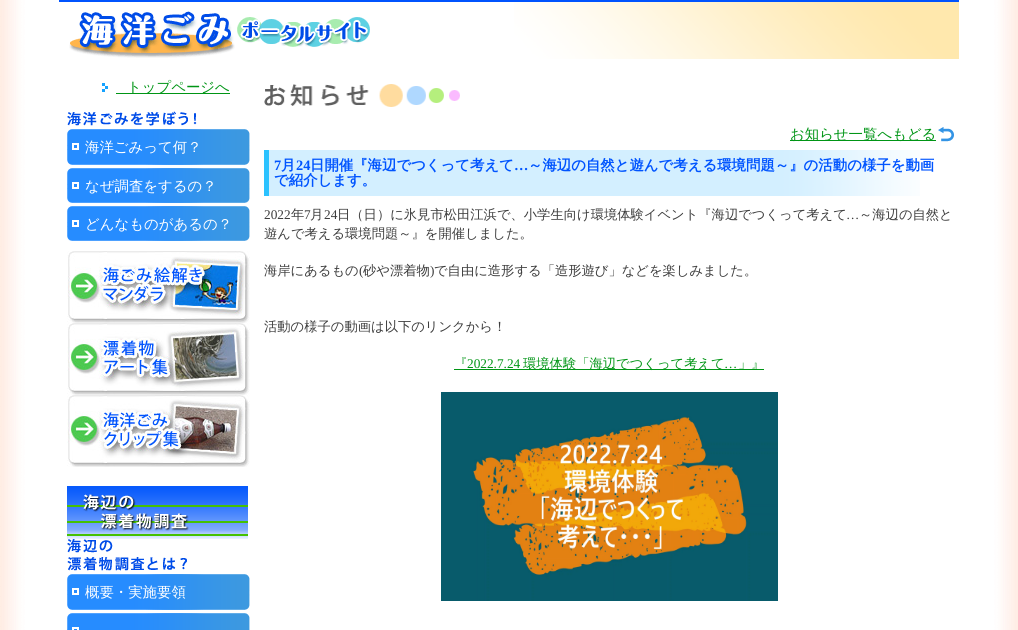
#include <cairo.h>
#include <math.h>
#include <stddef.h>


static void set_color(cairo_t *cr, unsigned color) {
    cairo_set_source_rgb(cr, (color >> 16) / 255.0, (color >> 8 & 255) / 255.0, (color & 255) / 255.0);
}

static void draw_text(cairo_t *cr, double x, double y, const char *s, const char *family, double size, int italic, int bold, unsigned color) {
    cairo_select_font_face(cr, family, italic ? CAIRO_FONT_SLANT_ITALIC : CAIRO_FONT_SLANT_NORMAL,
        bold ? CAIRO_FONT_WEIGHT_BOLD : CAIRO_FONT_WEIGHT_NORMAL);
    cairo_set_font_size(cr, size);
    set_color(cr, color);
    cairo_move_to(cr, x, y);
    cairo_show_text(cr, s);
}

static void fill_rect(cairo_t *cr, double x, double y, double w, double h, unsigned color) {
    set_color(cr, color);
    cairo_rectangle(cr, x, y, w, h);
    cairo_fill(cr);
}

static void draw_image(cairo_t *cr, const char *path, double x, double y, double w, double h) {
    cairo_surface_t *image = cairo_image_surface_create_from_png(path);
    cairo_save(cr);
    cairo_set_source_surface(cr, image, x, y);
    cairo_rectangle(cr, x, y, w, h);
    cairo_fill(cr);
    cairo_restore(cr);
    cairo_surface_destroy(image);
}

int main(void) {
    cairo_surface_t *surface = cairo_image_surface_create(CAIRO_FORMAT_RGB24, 1018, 630);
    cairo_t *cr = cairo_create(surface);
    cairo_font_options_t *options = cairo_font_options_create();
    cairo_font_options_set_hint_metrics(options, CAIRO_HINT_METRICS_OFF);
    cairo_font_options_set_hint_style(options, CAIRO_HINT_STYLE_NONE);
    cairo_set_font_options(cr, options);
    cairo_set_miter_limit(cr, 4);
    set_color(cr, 0xFFFFFF);
    cairo_paint(cr);
    draw_image(cr, "assets/img1.png", 0, 0, 1018, 630);
    draw_image(cr, "assets/img2.png", 514, 2, 445, 57);
    fill_rect(cr, 59, 0, 900, 2, 0x0053FE);
    draw_image(cr, "assets/img3.png", 69, 11, 301, 47);
    draw_image(cr, "assets/img4.png", 102, 83, 6, 9);
    fill_rect(cr, 116, 93, 114, 1, 0x009515);
    draw_text(cr, 127, 92, "トップページへ", "WenQuanYi Zen Hei Medium", 14.4, 0, 0, 0x009515);
    draw_image(cr, "assets/img5.png", 67, 111, 130, 15);
    draw_image(cr, "assets/img6.png", 67, 150, 183, 15);
    draw_image(cr, "assets/img7.png", 67, 129, 183, 21);
    draw_text(cr, 85, 152, "海洋ごみって何？", "WenQuanYi Zen Hei Medium", 14.4, 0, 0, 0xFFFFFF);
    draw_image(cr, "assets/img8.png", 67, 189, 183, 14);
    draw_image(cr, "assets/img7.png", 67, 168, 183, 21);
    draw_text(cr, 85, 191, "なぜ調査をするの？", "WenQuanYi Zen Hei Medium", 14.4, 0, 0, 0xFFFFFF);
    draw_image(cr, "assets/img8.png", 67, 227, 183, 14);
    draw_image(cr, "assets/img7.png", 67, 206, 183, 21);
    draw_text(cr, 85, 229, "どんなものがあるの？", "WenQuanYi Zen Hei Medium", 14.4, 0, 0, 0xFFFFFF);
    draw_image(cr, "assets/img9.png", 67, 251, 183, 72);
    draw_image(cr, "assets/img10.png", 67, 323, 183, 72);
    draw_image(cr, "assets/img11.png", 67, 395, 183, 72);
    draw_image(cr, "assets/img12.png", 67, 486, 181, 53);
    draw_image(cr, "assets/img13.png", 67, 539, 120, 32);
    draw_image(cr, "assets/img6.png", 67, 595, 183, 15);
    draw_image(cr, "assets/img7.png", 67, 574, 183, 21);
    draw_text(cr, 85, 597, "概要・実施要領", "WenQuanYi Zen Hei Medium", 14.4, 0, 0, 0xFFFFFF);
    draw_image(cr, "assets/img14.png", 67, 613, 183, 17);
    draw_image(cr, "assets/img15.png", 264, 84, 196, 23);
    draw_image(cr, "assets/img16.png", 938, 127, 16, 15);
    fill_rect(cr, 790, 140, 146, 1, 0x009515);
    draw_text(cr, 790, 139, "お知らせ一覧へもどる", "WenQuanYi Zen Hei Medium", 14.4, 0, 0, 0x009515);
    draw_image(cr, "assets/img17.png", 264, 150, 656, 46);
    draw_text(cr, 274, 170, "7", "Liberation Serif", 14.4, 0, 1, 0x0054FF);
    draw_text(cr, 281, 170, "月", "WenQuanYi Zen Hei", 14.4, 0, 1, 0x0054FF);
    draw_text(cr, 296, 170, "24", "Liberation Serif", 14.4, 0, 1, 0x0054FF);
    draw_text(cr, 310, 170, "日開催『海辺でつくって考えて", "WenQuanYi Zen Hei", 14.4, 0, 1, 0x0054FF);
    draw_text(cr, 514, 170, "…", "Liberation Serif", 14.4, 0, 1, 0x0054FF);
    draw_text(cr, 528, 170, "～海辺の自然と遊んで考える環境問題～』の活動の様子を動画", "WenQuanYi Zen Hei", 14.4, 0, 1, 0x0054FF);
    draw_text(cr, 274, 185, "で紹介します。", "WenQuanYi Zen Hei", 14.4, 0, 1, 0x0054FF);
    draw_text(cr, 264, 219, "2022", "Liberation Serif", 13.3, 0, 0, 0x3C3C3C);
    draw_text(cr, 291, 219, "年", "WenQuanYi Zen Hei Medium", 13.3, 0, 0, 0x3C3C3C);
    draw_text(cr, 304, 219, "7", "Liberation Serif", 13.3, 0, 0, 0x3C3C3C);
    draw_text(cr, 310, 219, "月", "WenQuanYi Zen Hei Medium", 13.3, 0, 0, 0x3C3C3C);
    draw_text(cr, 324, 219, "24", "Liberation Serif", 13.3, 0, 0, 0x3C3C3C);
    draw_text(cr, 337, 219, "日（日）に氷見市松田江浜で、小学生向け環境体験イベント『海辺でつくって考えて", "WenQuanYi Zen Hei Medium", 13.3, 0, 0, 0x3C3C3C);
    draw_text(cr, 846, 219, "…", "Liberation Serif", 13.3, 0, 0, 0x3C3C3C);
    draw_text(cr, 859, 219, "～海辺の自然と", "WenQuanYi Zen Hei Medium", 13.3, 0, 0, 0x3C3C3C);
    draw_text(cr, 264, 238, "遊んで考える環境問題～』を開催しました。", "WenQuanYi Zen Hei Medium", 13.3, 0, 0, 0x3C3C3C);
    draw_text(cr, 264, 275, "海岸にあるもの", "WenQuanYi Zen Hei Medium", 13.3, 0, 0, 0x3C3C3C);
    draw_text(cr, 359, 275, "(", "Liberation Serif", 13.3, 0, 0, 0x3C3C3C);
    draw_text(cr, 363, 275, "砂や漂着物", "WenQuanYi Zen Hei Medium", 13.3, 0, 0, 0x3C3C3C);
    draw_text(cr, 430, 275, ")", "Liberation Serif", 13.3, 0, 0, 0x3C3C3C);
    draw_text(cr, 434, 275, "で自由に造形する「造形遊び」などを楽しみました。", "WenQuanYi Zen Hei Medium", 13.3, 0, 0, 0x3C3C3C);
    draw_text(cr, 264, 331, "活動の様子の動画は以下のリンクから！", "WenQuanYi Zen Hei Medium", 13.3, 0, 0, 0x3C3C3C);
    draw_text(cr, 454, 368, "『", "WenQuanYi Zen Hei Medium", 13.3, 0, 0, 0x009515);
    draw_text(cr, 467, 368, "2022.7.24", "Liberation Serif", 13.3, 0, 0, 0x009515);
    fill_rect(cr, 454, 369, 310, 1, 0x009515);
    draw_text(cr, 523, 368, "環境体験「海辺でつくって考えて", "WenQuanYi Zen Hei Medium", 13.3, 0, 0, 0x009515);
    draw_text(cr, 724, 368, "…", "Liberation Serif", 13.3, 0, 0, 0x009515);
    draw_text(cr, 738, 368, "」』", "WenQuanYi Zen Hei Medium", 13.3, 0, 0, 0x009515);
    draw_image(cr, "assets/img18.png", 441, 392, 337, 209);
    cairo_surface_write_to_png(surface, "output.png");
    cairo_font_options_destroy(options);
    cairo_destroy(cr);
    cairo_surface_destroy(surface);
    return 0;
}
